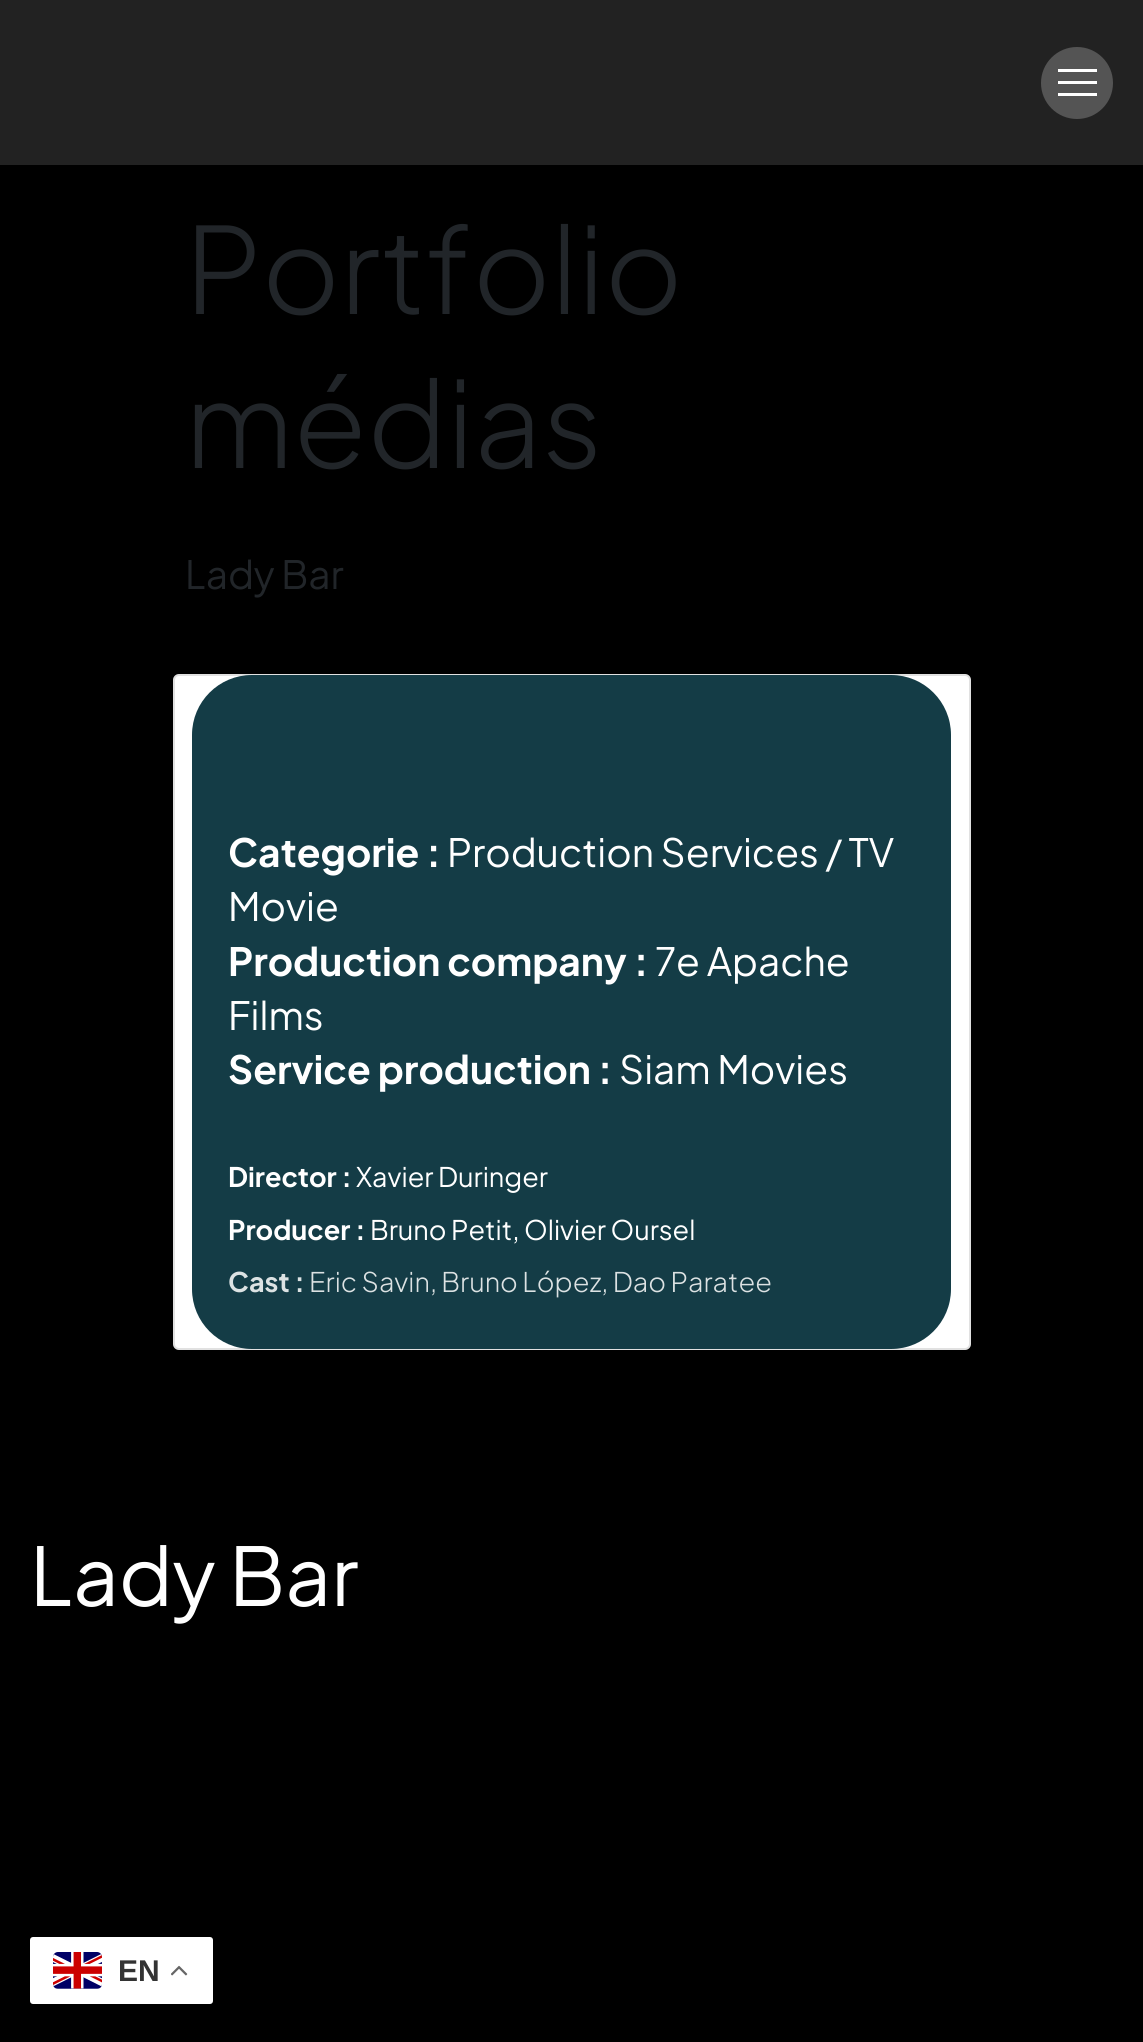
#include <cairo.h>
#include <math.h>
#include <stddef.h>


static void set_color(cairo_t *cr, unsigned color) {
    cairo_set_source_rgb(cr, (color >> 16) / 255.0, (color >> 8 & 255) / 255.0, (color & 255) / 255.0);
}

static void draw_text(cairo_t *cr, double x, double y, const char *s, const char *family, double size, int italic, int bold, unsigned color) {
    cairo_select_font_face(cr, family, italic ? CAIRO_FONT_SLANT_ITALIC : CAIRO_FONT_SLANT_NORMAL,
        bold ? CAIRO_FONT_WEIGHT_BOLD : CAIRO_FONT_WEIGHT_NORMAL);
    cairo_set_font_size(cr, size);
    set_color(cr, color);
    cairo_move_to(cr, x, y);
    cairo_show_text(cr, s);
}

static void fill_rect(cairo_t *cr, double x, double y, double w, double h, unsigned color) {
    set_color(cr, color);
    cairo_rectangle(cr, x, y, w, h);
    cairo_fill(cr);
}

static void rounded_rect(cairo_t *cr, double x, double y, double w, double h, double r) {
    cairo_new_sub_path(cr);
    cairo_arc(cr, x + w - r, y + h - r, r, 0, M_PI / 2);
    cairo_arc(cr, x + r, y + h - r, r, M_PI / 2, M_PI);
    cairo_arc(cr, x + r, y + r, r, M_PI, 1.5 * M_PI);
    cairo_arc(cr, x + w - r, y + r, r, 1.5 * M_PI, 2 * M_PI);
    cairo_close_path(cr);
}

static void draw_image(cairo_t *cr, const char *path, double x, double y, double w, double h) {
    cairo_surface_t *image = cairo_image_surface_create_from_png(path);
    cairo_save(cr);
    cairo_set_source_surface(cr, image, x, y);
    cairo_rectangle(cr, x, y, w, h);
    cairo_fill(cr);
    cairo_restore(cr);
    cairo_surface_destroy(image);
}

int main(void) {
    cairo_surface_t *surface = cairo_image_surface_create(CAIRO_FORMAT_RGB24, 1143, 2042);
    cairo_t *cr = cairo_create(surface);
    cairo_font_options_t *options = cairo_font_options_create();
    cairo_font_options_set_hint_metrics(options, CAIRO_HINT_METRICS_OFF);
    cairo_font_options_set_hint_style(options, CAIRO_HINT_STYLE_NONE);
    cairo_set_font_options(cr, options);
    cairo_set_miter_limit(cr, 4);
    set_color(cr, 0x000000);
    cairo_paint(cr);
    fill_rect(cr, 0, 0, 1143, 165, 0x222222);
    set_color(cr, 0x545454);
    cairo_arc(cr, 1077, 83, 36, 0, 2 * M_PI);
    cairo_fill(cr);
    fill_rect(cr, 1058, 69, 39, 3, 0xFFFFFF);
    fill_rect(cr, 1058, 81, 39, 3, 0xFFFFFF);
    fill_rect(cr, 1058, 93, 39, 3, 0xFFFFFF);
    draw_text(cr, 185, 314, "Portfolio", "Plus Jakarta Sans Light", 119, 0, 0, 0x212529);
    draw_text(cr, 185, 468, "médias", "Plus Jakarta Sans Light", 119, 0, 0, 0x212529);
    draw_text(cr, 185, 589, "Lady Bar", "Plus Jakarta Sans", 38.9, 0, 0, 0x212529);
    set_color(cr, 0xFFFFFF);
    rounded_rect(cr, 173, 674, 798, 676, 6);
    cairo_fill(cr);
    rounded_rect(cr, 174, 675, 796, 674, 5);
    cairo_set_source_rgba(cr, 0, 0, 0, 0.12);
    cairo_stroke(cr);
    set_color(cr, 0x143C46);
    rounded_rect(cr, 192, 675, 759, 674, 60);
    cairo_fill(cr);
    draw_text(cr, 228, 867, "Categorie :", "Plus Jakarta Sans", 38.9, 0, 1, 0xFFFFFF);
    draw_text(cr, 447, 867, "Production Services / TV", "Plus Jakarta Sans", 38.9, 0, 0, 0xFFFFFF);
    draw_text(cr, 228, 921, "Movie", "Plus Jakarta Sans", 38.9, 0, 0, 0xFFFFFF);
    draw_text(cr, 228, 976, "Production company :", "Plus Jakarta Sans", 38.9, 0, 1, 0xFFFFFF);
    draw_text(cr, 655, 976, "7e Apache", "Plus Jakarta Sans", 38.9, 0, 0, 0xFFFFFF);
    draw_text(cr, 228, 1030, "Films", "Plus Jakarta Sans", 38.9, 0, 0, 0xFFFFFF);
    draw_text(cr, 228, 1084, "Service production :", "Plus Jakarta Sans", 38.9, 0, 1, 0xFFFFFF);
    draw_text(cr, 619, 1084, "Siam Movies", "Plus Jakarta Sans", 38.9, 0, 0, 0xFFFFFF);
    draw_text(cr, 228, 1187, "Director :", "Plus Jakarta Sans", 27, 0, 1, 0xFFFFFF);
    draw_text(cr, 356, 1187, "Xavier Duringer", "Plus Jakarta Sans", 27, 0, 0, 0xFFFFFF);
    draw_text(cr, 228, 1240, "Producer :", "Plus Jakarta Sans", 27, 0, 1, 0xFFFFFF);
    draw_text(cr, 370, 1240, "Bruno Petit, Olivier Oursel", "Plus Jakarta Sans", 27, 0, 0, 0xFFFFFF);
    draw_text(cr, 228, 1292, "Cast :", "Plus Jakarta Sans", 27, 0, 1, 0xDCE2E3);
    draw_text(cr, 309, 1292, "Eric Savin, Bruno López, Dao Paratee", "Plus Jakarta Sans Light", 27, 0, 0, 0xDCE2E3);
    draw_text(cr, 30, 1606, "Lady Bar", "Plus Jakarta Sans", 80.5, 0, 0, 0xFFFFFF);
    rounded_rect(cr, 30, 1937, 183, 67, 3);
    cairo_fill(cr);
    draw_image(cr, "assets/img1.png", 53, 1952, 49, 37);
    draw_text(cr, 118, 1981, "EN", "Liberation Sans", 30, 0, 1, 0x333333);
    draw_image(cr, "assets/img2.png", 171, 1965, 17, 11);
    cairo_surface_write_to_png(surface, "output.png");
    cairo_font_options_destroy(options);
    cairo_destroy(cr);
    cairo_surface_destroy(surface);
    return 0;
}
